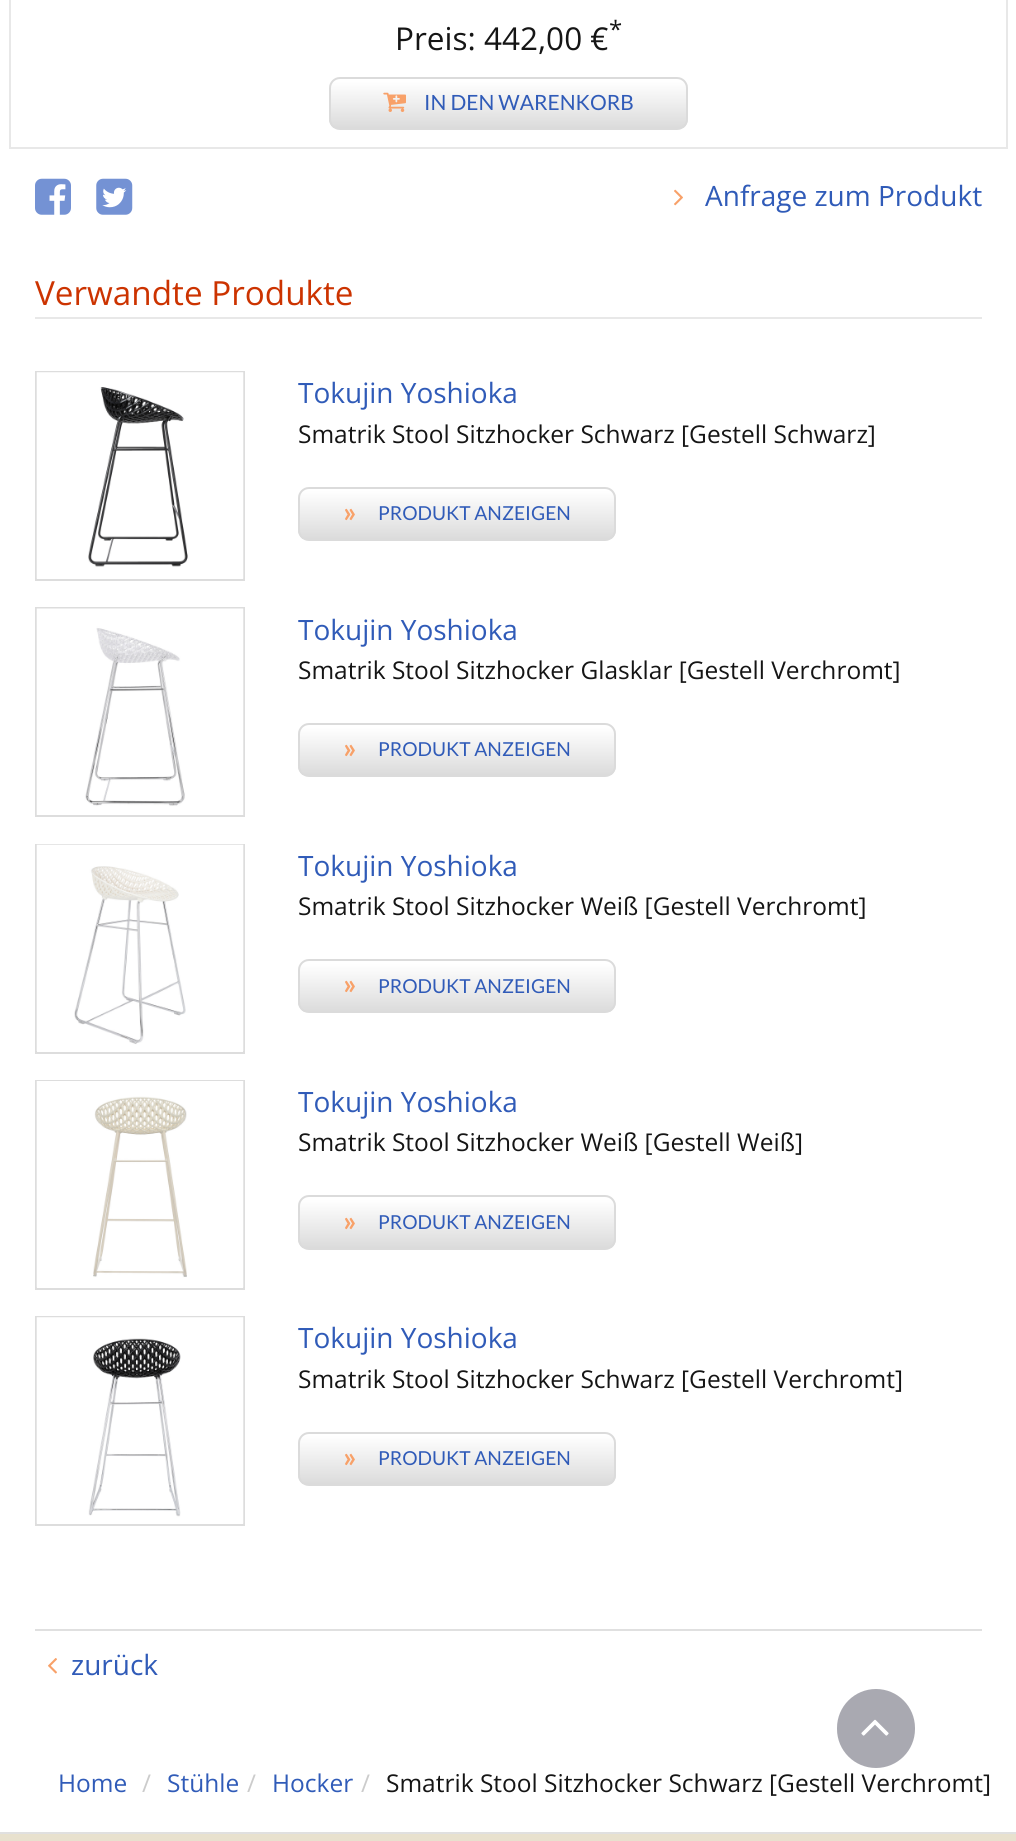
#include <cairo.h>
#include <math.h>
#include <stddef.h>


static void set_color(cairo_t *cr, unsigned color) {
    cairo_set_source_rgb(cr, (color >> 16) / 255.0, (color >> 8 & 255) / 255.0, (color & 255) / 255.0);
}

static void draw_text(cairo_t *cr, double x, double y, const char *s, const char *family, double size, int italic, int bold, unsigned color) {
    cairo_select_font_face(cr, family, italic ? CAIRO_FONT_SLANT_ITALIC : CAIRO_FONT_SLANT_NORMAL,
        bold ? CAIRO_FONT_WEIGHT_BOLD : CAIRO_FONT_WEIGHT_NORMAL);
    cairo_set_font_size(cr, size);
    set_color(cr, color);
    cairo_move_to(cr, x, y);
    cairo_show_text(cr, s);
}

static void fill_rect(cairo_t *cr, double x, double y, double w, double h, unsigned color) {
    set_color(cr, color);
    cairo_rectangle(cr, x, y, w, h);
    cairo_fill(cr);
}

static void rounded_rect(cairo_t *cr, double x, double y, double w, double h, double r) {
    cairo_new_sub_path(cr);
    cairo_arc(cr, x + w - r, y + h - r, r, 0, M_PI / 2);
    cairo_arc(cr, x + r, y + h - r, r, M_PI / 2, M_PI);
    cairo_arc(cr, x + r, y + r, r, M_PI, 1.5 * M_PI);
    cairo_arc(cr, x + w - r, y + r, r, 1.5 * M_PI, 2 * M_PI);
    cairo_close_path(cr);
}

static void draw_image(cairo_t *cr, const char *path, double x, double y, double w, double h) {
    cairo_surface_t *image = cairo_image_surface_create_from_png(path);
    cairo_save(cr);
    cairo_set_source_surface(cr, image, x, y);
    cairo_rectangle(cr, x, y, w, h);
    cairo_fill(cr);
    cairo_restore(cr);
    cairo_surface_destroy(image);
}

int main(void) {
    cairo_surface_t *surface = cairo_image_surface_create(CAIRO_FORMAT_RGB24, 1016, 1841);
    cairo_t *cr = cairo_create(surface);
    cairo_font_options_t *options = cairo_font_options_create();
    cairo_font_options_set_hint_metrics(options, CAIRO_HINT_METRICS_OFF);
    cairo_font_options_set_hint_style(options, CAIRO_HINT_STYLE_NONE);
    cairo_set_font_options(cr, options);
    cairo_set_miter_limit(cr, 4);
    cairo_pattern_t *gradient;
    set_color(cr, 0xE8E1CE);
    cairo_paint(cr);
    fill_rect(cr, 0, 0, 1016, 1832, 0xFFFFFF);
    cairo_rectangle(cr, 10, -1, 997, 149);
    set_color(cr, 0xE8E8E8);
    cairo_stroke(cr);
    draw_text(cr, 395, 50, "Preis: 442,00 €", "Open Sans", 31.5, 0, 0, 0x151515);
    draw_text(cr, 609, 38, "*", "Open Sans", 24, 0, 0, 0x151515);
    cairo_save(cr);
    rounded_rect(cr, 329, 77, 359, 53, 11);
    cairo_clip(cr);
    gradient = cairo_pattern_create_linear(508, 79, 508, 128);
    cairo_pattern_add_color_stop_rgba(gradient, 0.05, 1, 1, 1, 1);
    cairo_pattern_add_color_stop_rgba(gradient, 1, 0.859, 0.859, 0.859, 1);
    cairo_set_source(cr, gradient);
    cairo_pattern_destroy(gradient);
    cairo_rectangle(cr, 329, 79, 359, 49);
    cairo_fill(cr);
    cairo_restore(cr);
    rounded_rect(cr, 330, 78, 357, 51, 10);
    set_color(cr, 0xDBDBDB);
    cairo_stroke(cr);
    draw_image(cr, "assets/img1.png", 383, 92, 23, 20);
    draw_text(cr, 424, 110, "IN DEN WARENKORB", "Lato", 21, 0, 0, 0x305BB8);
    draw_image(cr, "assets/img2.png", 35, 178, 36, 37);
    draw_image(cr, "assets/img3.png", 96, 178, 37, 37);
    draw_image(cr, "assets/img4.png", 674, 189, 9, 17);
    draw_text(cr, 705, 206, "Anfrage zum Produkt", "Open Sans", 28, 0, 0, 0x305BB8);
    fill_rect(cr, 35, 317, 947, 2, 0xE8E8E8);
    draw_text(cr, 35, 305, "Verwandte Produkte", "Open Sans", 33.25, 0, 0, 0xCC3300);
    cairo_rectangle(cr, 36, 372, 208, 208);
    set_color(cr, 0xDDDDDD);
    cairo_stroke(cr);
    draw_image(cr, "assets/img5.png", 36, 372, 208, 207);
    draw_text(cr, 298, 403, "Tokujin Yoshioka", "Open Sans", 28, 0, 0, 0x305BB8);
    draw_text(cr, 298, 443, "Smatrik Stool Sitzhocker Schwarz [Gestell Schwarz]", "Open Sans", 24.5, 0, 0, 0x151515);
    cairo_save(cr);
    rounded_rect(cr, 298, 487, 318, 54, 11);
    cairo_clip(cr);
    gradient = cairo_pattern_create_linear(457, 488, 457, 539);
    cairo_pattern_add_color_stop_rgba(gradient, 0.05, 1, 1, 1, 1);
    cairo_pattern_add_color_stop_rgba(gradient, 1, 0.859, 0.859, 0.859, 1);
    cairo_set_source(cr, gradient);
    cairo_pattern_destroy(gradient);
    cairo_rectangle(cr, 298, 488, 318, 51);
    cairo_fill(cr);
    cairo_restore(cr);
    rounded_rect(cr, 299, 488, 316, 52, 10);
    set_color(cr, 0xDBDBDB);
    cairo_stroke(cr);
    draw_text(cr, 343, 522, "»", "Lato", 28, 0, 1, 0xF8A169);
    draw_text(cr, 378, 520, "PRODUKT ANZEIGEN", "Lato", 19.25, 0, 0, 0x305BB8);
    cairo_rectangle(cr, 36, 608, 208, 208);
    set_color(cr, 0xDDDDDD);
    cairo_stroke(cr);
    draw_image(cr, "assets/img6.png", 36, 608, 208, 207);
    draw_text(cr, 298, 640, "Tokujin Yoshioka", "Open Sans", 28, 0, 0, 0x305BB8);
    draw_text(cr, 298, 679, "Smatrik Stool Sitzhocker Glasklar [Gestell Verchromt]", "Open Sans", 24.5, 0, 0, 0x151515);
    cairo_save(cr);
    rounded_rect(cr, 298, 723, 318, 54, 11);
    cairo_clip(cr);
    gradient = cairo_pattern_create_linear(457, 725, 457, 775);
    cairo_pattern_add_color_stop_rgba(gradient, 0.05, 1, 1, 1, 1);
    cairo_pattern_add_color_stop_rgba(gradient, 1, 0.859, 0.859, 0.859, 1);
    cairo_set_source(cr, gradient);
    cairo_pattern_destroy(gradient);
    cairo_rectangle(cr, 298, 725, 318, 50);
    cairo_fill(cr);
    cairo_restore(cr);
    rounded_rect(cr, 299, 724, 316, 52, 10);
    set_color(cr, 0xDBDBDB);
    cairo_stroke(cr);
    draw_text(cr, 343, 758, "»", "Lato", 28, 0, 1, 0xF8A169);
    draw_text(cr, 378, 756, "PRODUKT ANZEIGEN", "Lato", 19.25, 0, 0, 0x305BB8);
    cairo_rectangle(cr, 36, 845, 208, 208);
    set_color(cr, 0xDDDDDD);
    cairo_stroke(cr);
    draw_image(cr, "assets/img7.png", 36, 844, 208, 207);
    draw_text(cr, 298, 876, "Tokujin Yoshioka", "Open Sans", 28, 0, 0, 0x305BB8);
    draw_text(cr, 298, 915, "Smatrik Stool Sitzhocker Weiß [Gestell Verchromt]", "Open Sans", 24.5, 0, 0, 0x151515);
    cairo_save(cr);
    rounded_rect(cr, 298, 959, 318, 54, 11);
    cairo_clip(cr);
    gradient = cairo_pattern_create_linear(457, 961, 457, 1012);
    cairo_pattern_add_color_stop_rgba(gradient, 0.05, 1, 1, 1, 1);
    cairo_pattern_add_color_stop_rgba(gradient, 1, 0.859, 0.859, 0.859, 1);
    cairo_set_source(cr, gradient);
    cairo_pattern_destroy(gradient);
    cairo_rectangle(cr, 298, 961, 318, 51);
    cairo_fill(cr);
    cairo_restore(cr);
    rounded_rect(cr, 299, 960, 316, 52, 10);
    set_color(cr, 0xDBDBDB);
    cairo_stroke(cr);
    draw_text(cr, 343, 994, "»", "Lato", 28, 0, 1, 0xF8A169);
    draw_text(cr, 378, 993, "PRODUKT ANZEIGEN", "Lato", 19.25, 0, 0, 0x305BB8);
    cairo_rectangle(cr, 36, 1081, 208, 208);
    set_color(cr, 0xDDDDDD);
    cairo_stroke(cr);
    draw_image(cr, "assets/img8.png", 36, 1081, 208, 207);
    draw_text(cr, 298, 1112, "Tokujin Yoshioka", "Open Sans", 28, 0, 0, 0x305BB8);
    draw_text(cr, 298, 1151, "Smatrik Stool Sitzhocker Weiß [Gestell Weiß]", "Open Sans", 24.5, 0, 0, 0x151515);
    cairo_save(cr);
    rounded_rect(cr, 298, 1195, 318, 55, 11);
    cairo_clip(cr);
    gradient = cairo_pattern_create_linear(457, 1197, 457, 1248);
    cairo_pattern_add_color_stop_rgba(gradient, 0.05, 1, 1, 1, 1);
    cairo_pattern_add_color_stop_rgba(gradient, 1, 0.859, 0.859, 0.859, 1);
    cairo_set_source(cr, gradient);
    cairo_pattern_destroy(gradient);
    cairo_rectangle(cr, 298, 1197, 318, 51);
    cairo_fill(cr);
    cairo_restore(cr);
    rounded_rect(cr, 299, 1196, 316, 53, 10);
    set_color(cr, 0xDBDBDB);
    cairo_stroke(cr);
    draw_text(cr, 343, 1231, "»", "Lato", 28, 0, 1, 0xF8A169);
    draw_text(cr, 378, 1229, "PRODUKT ANZEIGEN", "Lato", 19.25, 0, 0, 0x305BB8);
    cairo_rectangle(cr, 36, 1317, 208, 208);
    set_color(cr, 0xDDDDDD);
    cairo_stroke(cr);
    draw_image(cr, "assets/img9.png", 36, 1317, 208, 207);
    draw_text(cr, 298, 1348, "Tokujin Yoshioka", "Open Sans", 28, 0, 0, 0x305BB8);
    draw_text(cr, 298, 1388, "Smatrik Stool Sitzhocker Schwarz [Gestell Verchromt]", "Open Sans", 24.5, 0, 0, 0x151515);
    cairo_save(cr);
    rounded_rect(cr, 298, 1432, 318, 54, 11);
    cairo_clip(cr);
    gradient = cairo_pattern_create_linear(457, 1433, 457, 1484);
    cairo_pattern_add_color_stop_rgba(gradient, 0.05, 1, 1, 1, 1);
    cairo_pattern_add_color_stop_rgba(gradient, 1, 0.859, 0.859, 0.859, 1);
    cairo_set_source(cr, gradient);
    cairo_pattern_destroy(gradient);
    cairo_rectangle(cr, 298, 1433, 318, 51);
    cairo_fill(cr);
    cairo_restore(cr);
    rounded_rect(cr, 299, 1433, 316, 52, 10);
    set_color(cr, 0xDBDBDB);
    cairo_stroke(cr);
    draw_text(cr, 343, 1467, "»", "Lato", 28, 0, 1, 0xF8A169);
    draw_text(cr, 378, 1465, "PRODUKT ANZEIGEN", "Lato", 19.25, 0, 0, 0x305BB8);
    fill_rect(cr, 35, 1629, 947, 2, 0xE0E0E0);
    draw_image(cr, "assets/img10.png", 48, 1658, 9, 16);
    draw_text(cr, 71, 1675, "zurück", "Open Sans", 28, 0, 0, 0x305BB8);
    draw_text(cr, 58, 1792, "Home", "Open Sans", 24.5, 0, 0, 0x305BB8);
    draw_text(cr, 142, 1792, "/", "Open Sans", 24.5, 0, 0, 0xCCCCCC);
    draw_text(cr, 167, 1792, "Stühle", "Open Sans", 24.5, 0, 0, 0x305BB8);
    draw_text(cr, 247, 1792, "/", "Open Sans", 24.5, 0, 0, 0xCCCCCC);
    draw_text(cr, 272, 1792, "Hocker", "Open Sans", 24.5, 0, 0, 0x305BB8);
    draw_text(cr, 361, 1792, "/", "Open Sans", 24.5, 0, 0, 0xCCCCCC);
    draw_text(cr, 386, 1792, "Smatrik Stool Sitzhocker Schwarz [Gestell Verchromt]", "Open Sans", 24.5, 0, 0, 0x151515);
    set_color(cr, 0xA9A9B1);
    rounded_rect(cr, 837, 1689, 78, 79, 39);
    cairo_fill(cr);
    draw_image(cr, "assets/img11.png", 861, 1719, 28, 17);
    fill_rect(cr, 0, 1832, 1016, 2, 0xE0E0E0);
    cairo_surface_write_to_png(surface, "output.png");
    cairo_font_options_destroy(options);
    cairo_destroy(cr);
    cairo_surface_destroy(surface);
    return 0;
}
